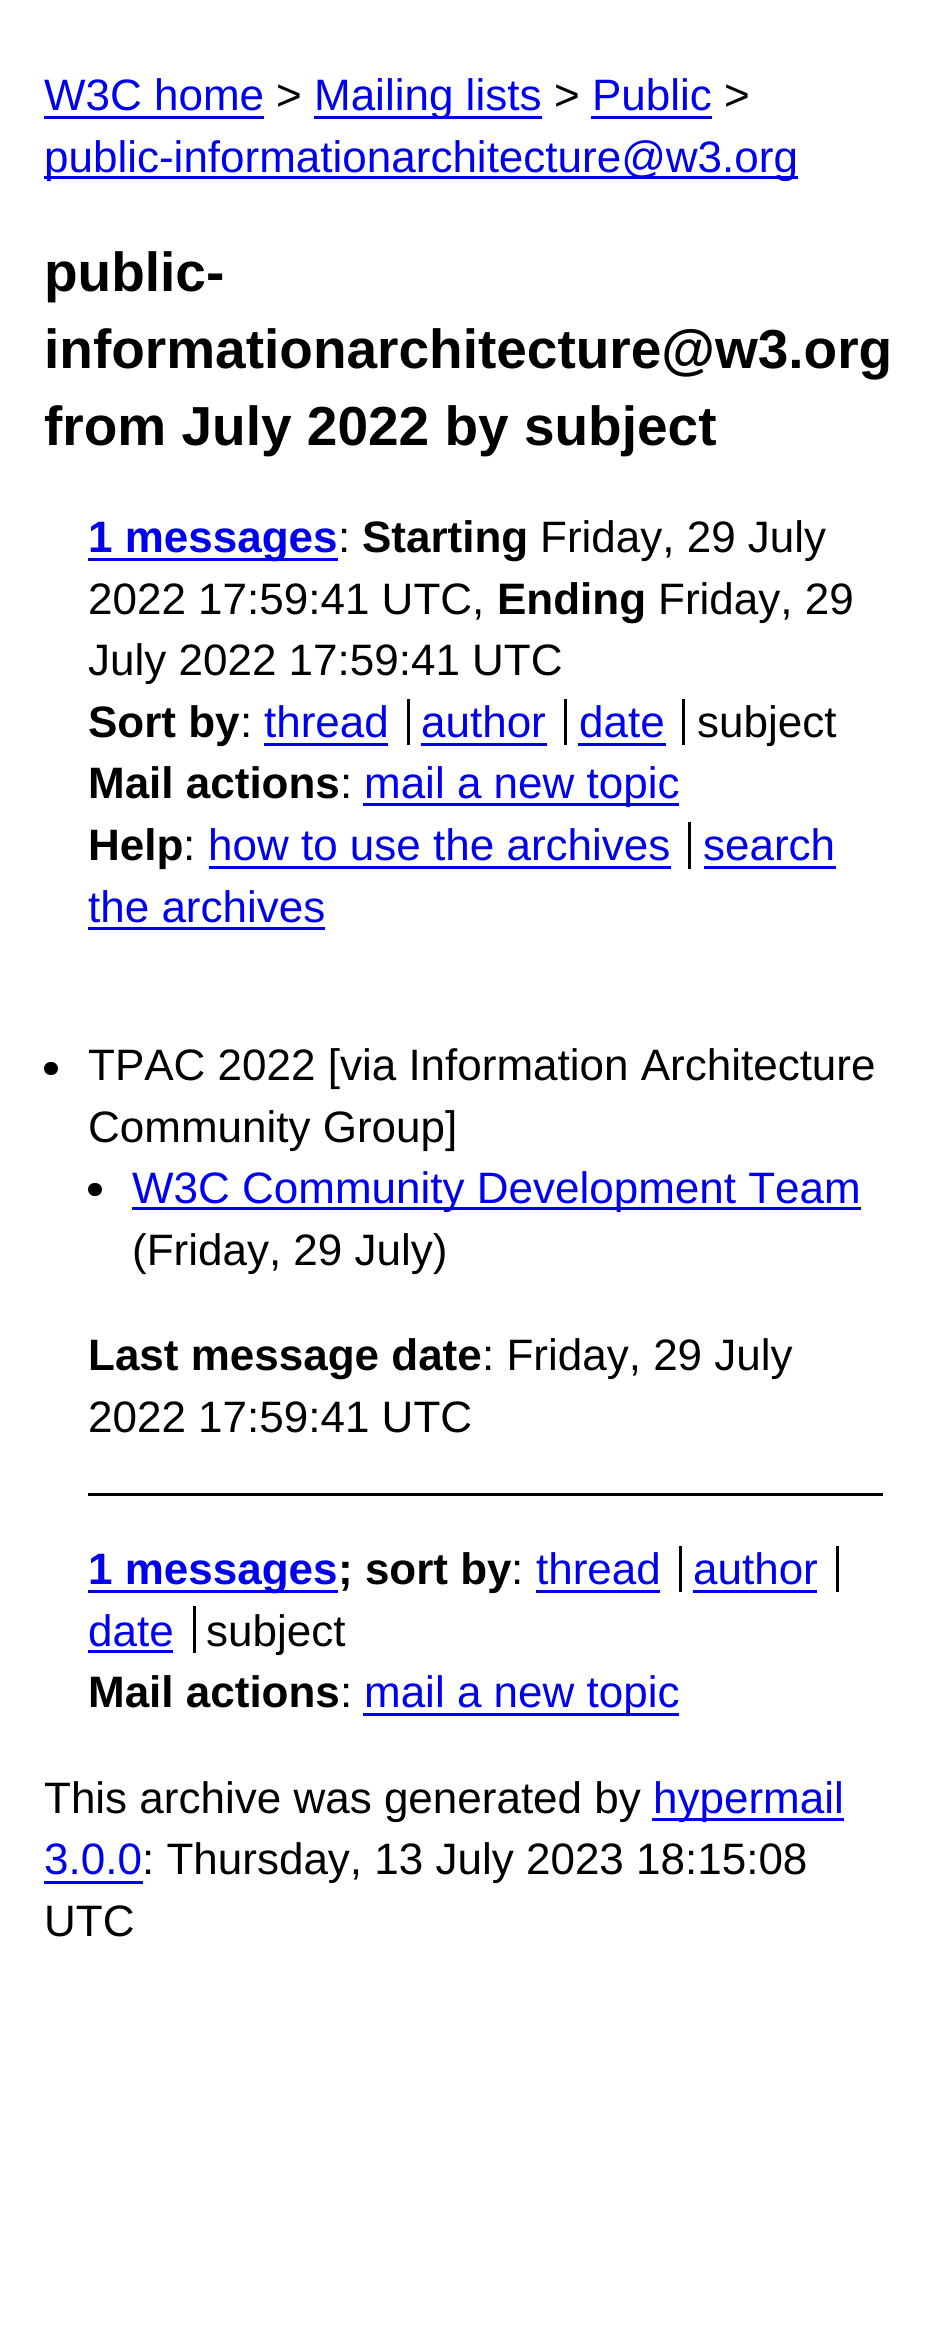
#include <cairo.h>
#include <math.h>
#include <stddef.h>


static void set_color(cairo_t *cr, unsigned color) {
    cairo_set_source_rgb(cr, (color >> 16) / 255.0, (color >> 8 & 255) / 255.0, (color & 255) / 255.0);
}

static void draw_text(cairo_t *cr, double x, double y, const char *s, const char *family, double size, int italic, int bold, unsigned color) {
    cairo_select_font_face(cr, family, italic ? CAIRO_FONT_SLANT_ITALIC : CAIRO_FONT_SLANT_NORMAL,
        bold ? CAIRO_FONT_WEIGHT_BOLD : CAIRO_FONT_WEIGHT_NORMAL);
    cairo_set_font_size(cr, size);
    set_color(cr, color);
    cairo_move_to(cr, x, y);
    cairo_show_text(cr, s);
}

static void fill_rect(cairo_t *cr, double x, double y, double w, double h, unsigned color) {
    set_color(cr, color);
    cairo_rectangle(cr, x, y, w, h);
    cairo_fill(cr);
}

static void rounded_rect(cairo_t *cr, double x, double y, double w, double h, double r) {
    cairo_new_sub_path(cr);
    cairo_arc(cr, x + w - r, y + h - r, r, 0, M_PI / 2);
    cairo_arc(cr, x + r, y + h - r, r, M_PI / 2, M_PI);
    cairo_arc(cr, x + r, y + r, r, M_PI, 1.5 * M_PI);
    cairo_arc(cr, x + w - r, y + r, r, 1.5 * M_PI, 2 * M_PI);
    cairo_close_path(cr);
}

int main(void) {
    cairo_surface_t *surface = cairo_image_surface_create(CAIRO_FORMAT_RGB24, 925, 2332);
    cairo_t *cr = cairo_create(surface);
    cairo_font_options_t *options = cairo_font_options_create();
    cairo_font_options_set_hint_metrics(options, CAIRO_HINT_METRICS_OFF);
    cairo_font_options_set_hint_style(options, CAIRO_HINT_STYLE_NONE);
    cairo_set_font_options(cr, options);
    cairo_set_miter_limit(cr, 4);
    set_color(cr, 0xFFFFFF);
    cairo_paint(cr);
    draw_text(cr, 44, 110, "W3C home", "Liberation Sans", 44, 0, 0, 0x0000EE);
    fill_rect(cr, 44, 116, 220, 3, 0x0000EE);
    draw_text(cr, 276, 110, ">", "Liberation Sans", 44, 0, 0, 0x000000);
    fill_rect(cr, 314, 116, 228, 3, 0x0000EE);
    draw_text(cr, 314, 110, "Mailing lists", "Liberation Sans", 44, 0, 0, 0x0000EE);
    draw_text(cr, 554, 110, ">", "Liberation Sans", 44, 0, 0, 0x000000);
    draw_text(cr, 592, 110, "Public", "Liberation Sans", 44, 0, 0, 0x0000EE);
    fill_rect(cr, 591, 116, 121, 3, 0x0000EE);
    draw_text(cr, 724, 110, ">", "Liberation Sans", 44, 0, 0, 0x000000);
    fill_rect(cr, 44, 176, 754, 3, 0x0000EE);
    draw_text(cr, 44, 172, "public-informationarchitecture@w3.org", "Liberation Sans", 44, 0, 0, 0x0000EE);
    draw_text(cr, 44, 291, "public-", "Liberation Sans", 55, 0, 1, 0x000000);
    draw_text(cr, 44, 368, "informationarchitecture@w3.org", "Liberation Sans", 55, 0, 1, 0x000000);
    draw_text(cr, 44, 445, "from July 2022 by subject", "Liberation Sans", 55, 0, 1, 0x000000);
    fill_rect(cr, 88, 558, 250, 3, 0x0000EE);
    draw_text(cr, 88, 552, "1 messages", "Liberation Sans", 44, 0, 1, 0x0000EE);
    draw_text(cr, 338, 552, ":", "Liberation Sans", 44, 0, 0, 0x000000);
    draw_text(cr, 362, 552, "Starting", "Liberation Sans", 44, 0, 1, 0x000000);
    draw_text(cr, 540, 552, "Friday, 29 July", "Liberation Sans", 44, 0, 0, 0x000000);
    draw_text(cr, 88, 614, "2022 17:59:41 UTC,", "Liberation Sans", 44, 0, 0, 0x000000);
    draw_text(cr, 497, 614, "Ending", "Liberation Sans", 44, 0, 1, 0x000000);
    draw_text(cr, 658, 614, "Friday, 29", "Liberation Sans", 44, 0, 0, 0x000000);
    draw_text(cr, 88, 675, "July 2022 17:59:41 UTC", "Liberation Sans", 44, 0, 0, 0x000000);
    draw_text(cr, 88, 737, "Sort by", "Liberation Sans", 44, 0, 1, 0x000000);
    draw_text(cr, 240, 737, ":", "Liberation Sans", 44, 0, 0, 0x000000);
    draw_text(cr, 264, 737, "thread", "Liberation Sans", 44, 0, 0, 0x0000EE);
    fill_rect(cr, 264, 743, 124, 3, 0x0000EE);
    draw_text(cr, 421, 737, "author", "Liberation Sans", 44, 0, 0, 0x0000EE);
    fill_rect(cr, 407, 699, 3, 46, 0x000000);
    fill_rect(cr, 421, 743, 126, 3, 0x0000EE);
    draw_text(cr, 579, 737, "date", "Liberation Sans", 44, 0, 0, 0x0000EE);
    fill_rect(cr, 564, 699, 3, 46, 0x000000);
    fill_rect(cr, 682, 699, 3, 46, 0x000000);
    fill_rect(cr, 578, 743, 88, 3, 0x0000EE);
    draw_text(cr, 697, 737, "subject", "Liberation Sans", 44, 0, 0, 0x000000);
    draw_text(cr, 88, 798, "Mail actions", "Liberation Sans", 44, 0, 1, 0x000000);
    draw_text(cr, 340, 798, ":", "Liberation Sans", 44, 0, 0, 0x000000);
    fill_rect(cr, 363, 803, 316, 3, 0x0000EE);
    draw_text(cr, 364, 798, "mail a new topic", "Liberation Sans", 44, 0, 0, 0x0000EE);
    draw_text(cr, 88, 860, "Help", "Liberation Sans", 44, 0, 1, 0x000000);
    draw_text(cr, 183, 860, ":", "Liberation Sans", 44, 0, 0, 0x000000);
    draw_text(cr, 208, 860, "how to use the archives", "Liberation Sans", 44, 0, 0, 0x0000EE);
    fill_rect(cr, 209, 866, 462, 3, 0x0000EE);
    draw_text(cr, 703, 860, "search", "Liberation Sans", 44, 0, 0, 0x0000EE);
    fill_rect(cr, 688, 822, 3, 47, 0x000000);
    fill_rect(cr, 704, 866, 132, 3, 0x0000EE);
    draw_text(cr, 88, 922, "the archives", "Liberation Sans", 44, 0, 0, 0x0000EE);
    fill_rect(cr, 88, 927, 237, 3, 0x0000EE);
    fill_rect(cr, 88, 1493, 795, 3, 0x000000);
    rounded_rect(cr, 44, 1062, 14, 13, 6.5);
    cairo_fill(cr);
    draw_text(cr, 88, 1080, "TPAC 2022 [via Information Architecture", "Liberation Sans", 44, 0, 0, 0x000000);
    draw_text(cr, 88, 1142, "Community Group]", "Liberation Sans", 44, 0, 0, 0x000000);
    rounded_rect(cr, 88, 1183, 14, 13, 6.5);
    cairo_fill(cr);
    fill_rect(cr, 132, 1207, 729, 3, 0x0000EE);
    draw_text(cr, 132, 1203, "W3C Community Development Team", "Liberation Sans", 44, 0, 0, 0x0000EE);
    draw_text(cr, 132, 1265, "(Friday, 29 July)", "Liberation Sans", 44, 0, 0, 0x000000);
    draw_text(cr, 88, 1370, "Last message date", "Liberation Sans", 44, 0, 1, 0x000000);
    draw_text(cr, 482, 1370, ": Friday, 29 July", "Liberation Sans", 44, 0, 0, 0x000000);
    draw_text(cr, 88, 1432, "2022 17:59:41 UTC", "Liberation Sans", 44, 0, 0, 0x000000);
    fill_rect(cr, 88, 1590, 250, 3, 0x0000EE);
    draw_text(cr, 88, 1584, "1 messages", "Liberation Sans", 44, 0, 1, 0x0000EE);
    draw_text(cr, 338, 1584, "; sort by", "Liberation Sans", 44, 0, 1, 0x000000);
    draw_text(cr, 511, 1584, ":", "Liberation Sans", 44, 0, 0, 0x000000);
    draw_text(cr, 536, 1584, "thread", "Liberation Sans", 44, 0, 0, 0x0000EE);
    fill_rect(cr, 536, 1590, 124, 3, 0x0000EE);
    draw_text(cr, 693, 1584, "author", "Liberation Sans", 44, 0, 0, 0x0000EE);
    fill_rect(cr, 679, 1546, 3, 46, 0x000000);
    fill_rect(cr, 836, 1546, 3, 46, 0x000000);
    fill_rect(cr, 693, 1590, 124, 3, 0x0000EE);
    draw_text(cr, 88, 1646, "date", "Liberation Sans", 44, 0, 0, 0x0000EE);
    fill_rect(cr, 88, 1650, 85, 3, 0x0000EE);
    draw_text(cr, 206, 1646, "subject", "Liberation Sans", 44, 0, 0, 0x000000);
    fill_rect(cr, 193, 1606, 3, 47, 0x000000);
    draw_text(cr, 88, 1707, "Mail actions", "Liberation Sans", 44, 0, 1, 0x000000);
    draw_text(cr, 340, 1707, ":", "Liberation Sans", 44, 0, 0, 0x000000);
    fill_rect(cr, 363, 1713, 316, 3, 0x0000EE);
    draw_text(cr, 364, 1707, "mail a new topic", "Liberation Sans", 44, 0, 0, 0x0000EE);
    draw_text(cr, 44, 1813, "This archive was generated by", "Liberation Sans", 44, 0, 0, 0x000000);
    fill_rect(cr, 652, 1818, 192, 3, 0x0000EE);
    draw_text(cr, 653, 1813, "hypermail", "Liberation Sans", 44, 0, 0, 0x0000EE);
    draw_text(cr, 44, 1874, "3.0.0", "Liberation Sans", 44, 0, 0, 0x0000EE);
    fill_rect(cr, 44, 1881, 99, 3, 0x0000EE);
    draw_text(cr, 142, 1874, ": Thursday, 13 July 2023 18:15:08", "Liberation Sans", 44, 0, 0, 0x000000);
    draw_text(cr, 44, 1936, "UTC", "Liberation Sans", 44, 0, 0, 0x000000);
    cairo_surface_write_to_png(surface, "output.png");
    cairo_font_options_destroy(options);
    cairo_destroy(cr);
    cairo_surface_destroy(surface);
    return 0;
}
